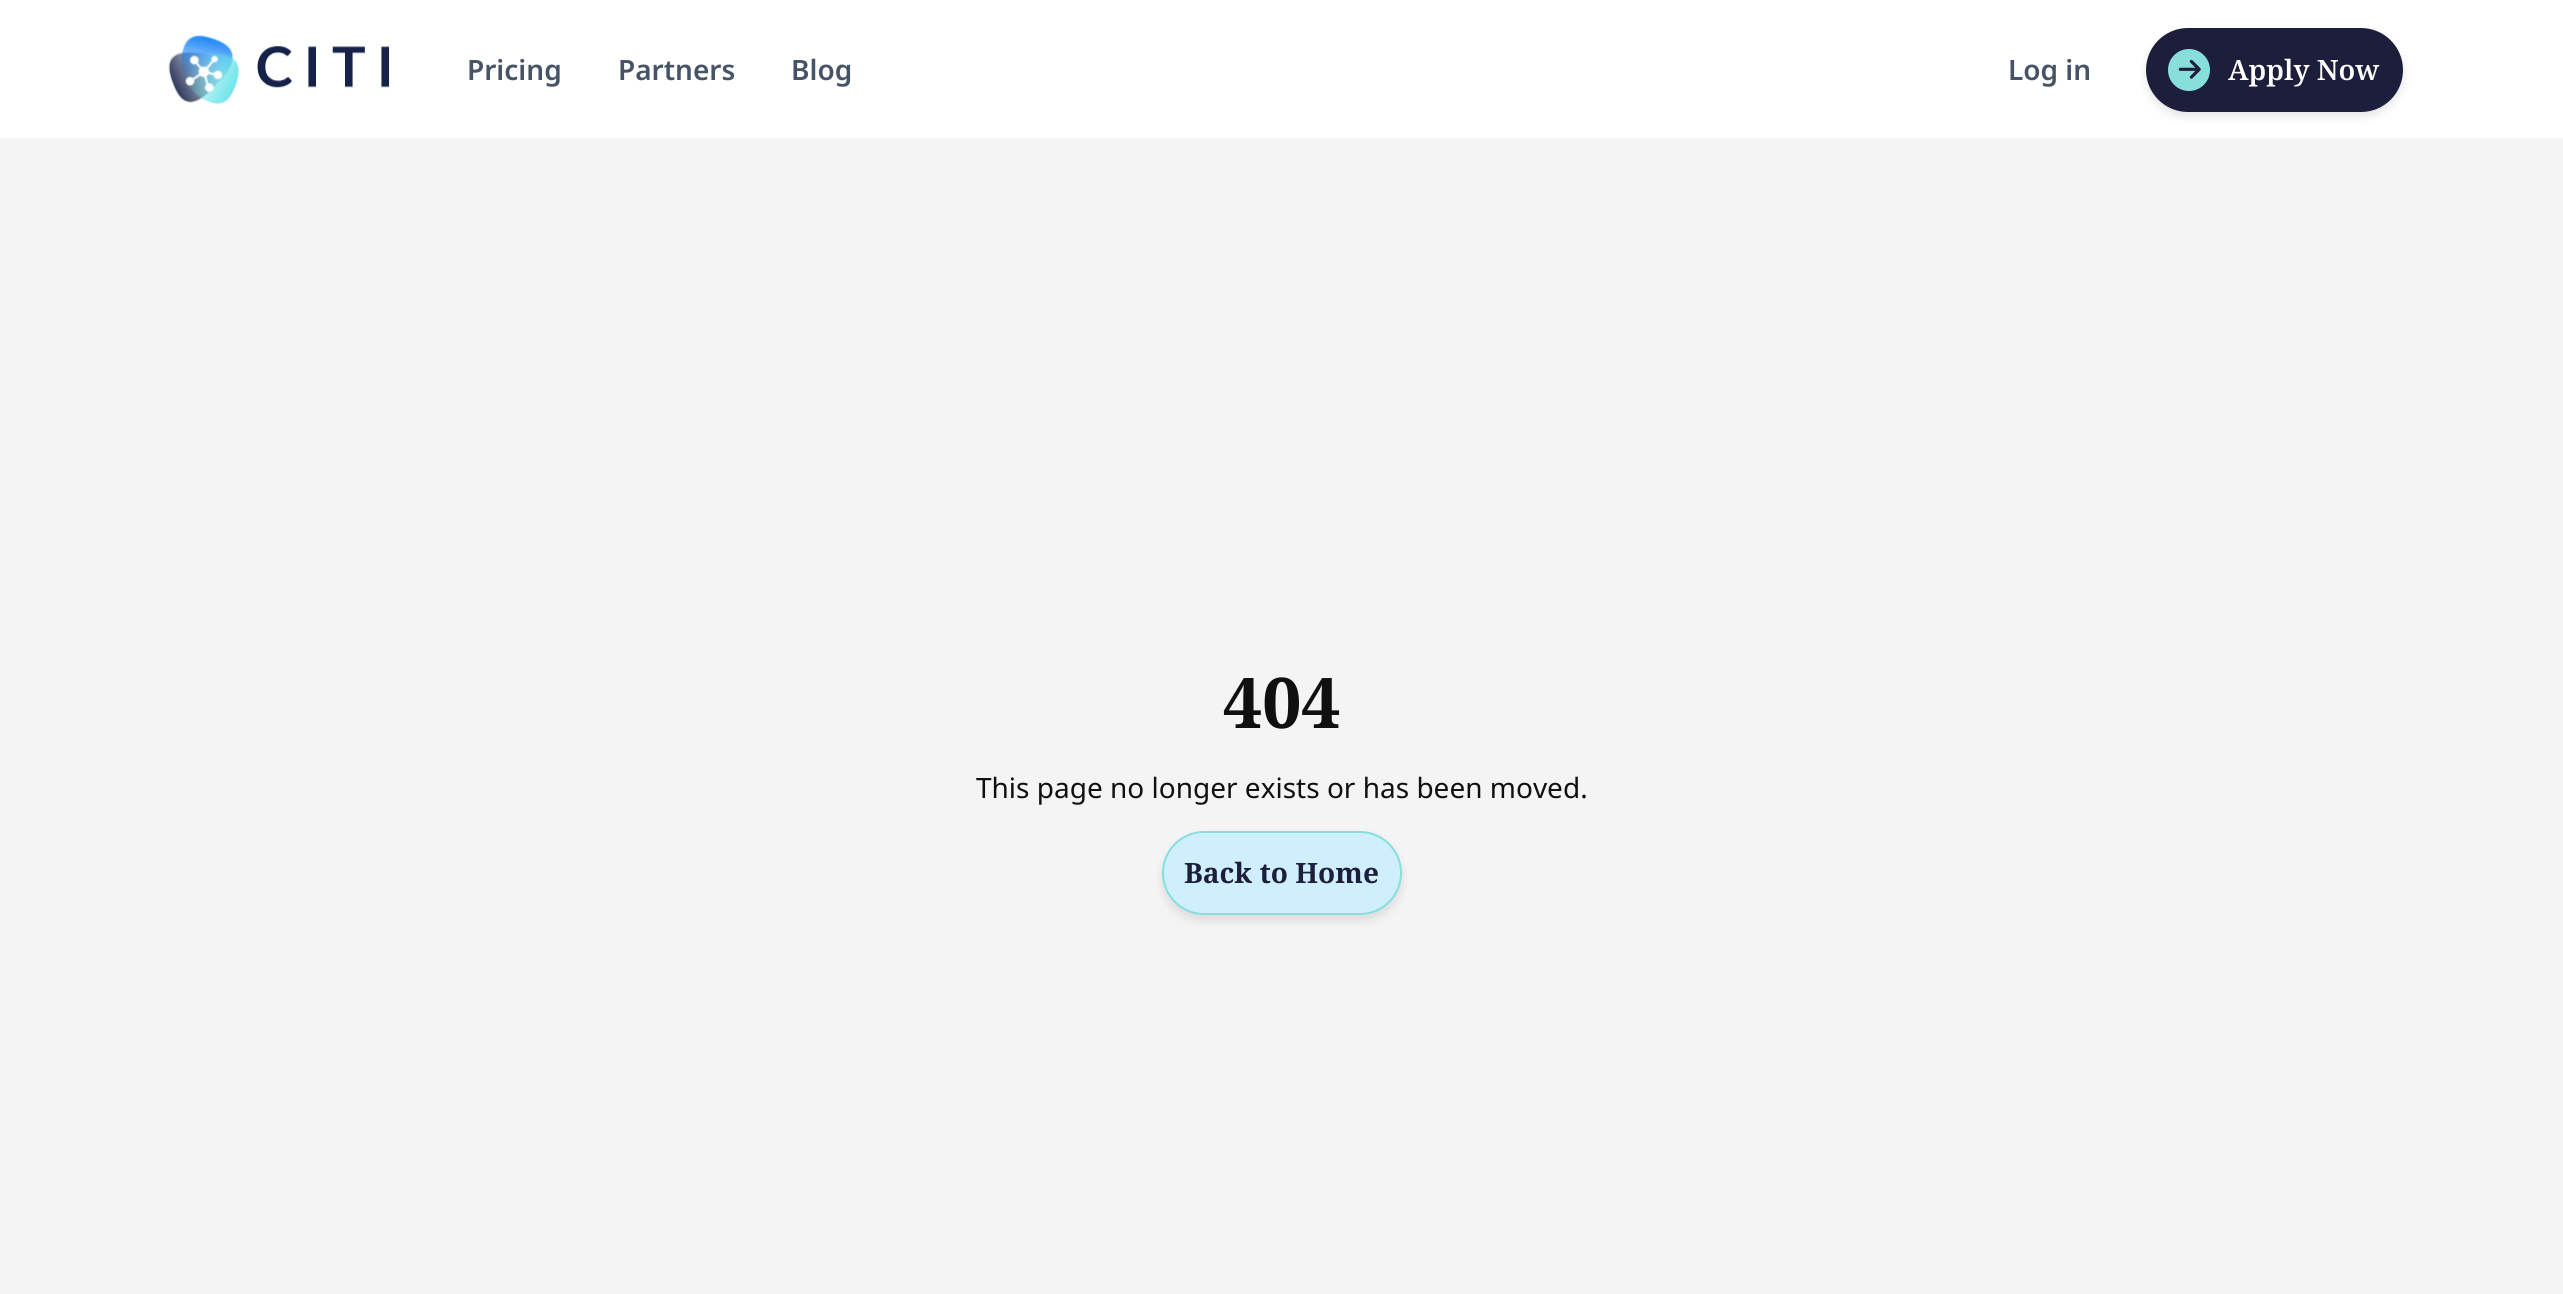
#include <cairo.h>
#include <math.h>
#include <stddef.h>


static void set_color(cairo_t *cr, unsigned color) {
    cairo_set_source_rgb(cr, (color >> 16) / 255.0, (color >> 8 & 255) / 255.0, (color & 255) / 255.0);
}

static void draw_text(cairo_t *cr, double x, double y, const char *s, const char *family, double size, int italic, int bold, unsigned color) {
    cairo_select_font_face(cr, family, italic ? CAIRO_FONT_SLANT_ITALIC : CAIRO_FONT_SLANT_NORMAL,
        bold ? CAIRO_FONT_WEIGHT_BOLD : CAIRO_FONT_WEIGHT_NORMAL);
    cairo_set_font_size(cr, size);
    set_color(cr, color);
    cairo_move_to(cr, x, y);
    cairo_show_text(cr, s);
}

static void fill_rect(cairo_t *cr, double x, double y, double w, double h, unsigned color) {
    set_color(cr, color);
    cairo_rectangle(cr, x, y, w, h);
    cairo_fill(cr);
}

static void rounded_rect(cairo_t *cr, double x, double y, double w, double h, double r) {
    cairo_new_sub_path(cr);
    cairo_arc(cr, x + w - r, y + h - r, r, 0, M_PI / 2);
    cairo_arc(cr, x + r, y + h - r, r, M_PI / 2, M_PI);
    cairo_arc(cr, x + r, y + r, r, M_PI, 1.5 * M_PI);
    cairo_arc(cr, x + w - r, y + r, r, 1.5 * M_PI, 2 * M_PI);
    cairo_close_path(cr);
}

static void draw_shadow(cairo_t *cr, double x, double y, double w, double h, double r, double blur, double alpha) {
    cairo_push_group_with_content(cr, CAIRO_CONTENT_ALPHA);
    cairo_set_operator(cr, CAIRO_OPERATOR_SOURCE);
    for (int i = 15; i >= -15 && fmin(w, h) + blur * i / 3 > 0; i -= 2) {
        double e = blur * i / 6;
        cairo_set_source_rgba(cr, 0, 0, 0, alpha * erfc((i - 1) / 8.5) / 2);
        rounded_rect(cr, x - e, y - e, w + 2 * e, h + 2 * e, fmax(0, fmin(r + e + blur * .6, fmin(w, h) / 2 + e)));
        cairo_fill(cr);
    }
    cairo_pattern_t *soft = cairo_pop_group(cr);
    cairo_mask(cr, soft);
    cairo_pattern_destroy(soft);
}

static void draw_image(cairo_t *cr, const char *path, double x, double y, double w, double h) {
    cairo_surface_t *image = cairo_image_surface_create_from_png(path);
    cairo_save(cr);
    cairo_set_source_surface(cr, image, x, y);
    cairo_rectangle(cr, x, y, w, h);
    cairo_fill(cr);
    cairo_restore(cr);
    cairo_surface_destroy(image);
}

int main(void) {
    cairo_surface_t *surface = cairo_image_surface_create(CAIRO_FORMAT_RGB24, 2563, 1294);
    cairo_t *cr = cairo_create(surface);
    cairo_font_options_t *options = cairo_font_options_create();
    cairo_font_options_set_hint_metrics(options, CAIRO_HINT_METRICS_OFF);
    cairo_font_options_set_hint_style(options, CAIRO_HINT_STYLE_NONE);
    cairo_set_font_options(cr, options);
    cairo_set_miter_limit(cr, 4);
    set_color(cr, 0xF4F4F4);
    cairo_paint(cr);
    fill_rect(cr, 0, 0, 2563, 138, 0xFFFFFF);
    fill_rect(cr, 0, 138, 2563, 2, 0xF2F4F7);
    draw_image(cr, "assets/img1.png", 168, 35, 222, 70);
    draw_text(cr, 467, 80, "Pricing", "Noto Sans SemiBold", 28, 0, 0, 0x475467);
    draw_text(cr, 618, 80, "Partners", "Noto Sans SemiBold", 28, 0, 0, 0x475467);
    draw_text(cr, 791, 80, "Blog", "Noto Sans SemiBold", 28, 0, 0, 0x475467);
    draw_text(cr, 2008, 80, "Log in", "Noto Sans SemiBold", 28, 0, 0, 0x475467);
    set_color(cr, 0x000000);
    draw_shadow(cr, 2146, 33, 257, 84, 42, 4.5, 0.1);
    set_color(cr, 0x1D1E3C);
    rounded_rect(cr, 2147, 29, 255, 82, 41);
    cairo_fill_preserve(cr);
    cairo_stroke(cr);
    set_color(cr, 0x88DEDA);
    cairo_arc(cr, 2189, 70, 21, 0, 2 * M_PI);
    cairo_fill(cr);
    draw_image(cr, "assets/img2.png", 2178, 59, 23, 20);
    draw_text(cr, 2228, 80, "Apply Now", "Noto Serif SemiBold", 28, 0, 0, 0xFFFFFF);
    draw_text(cr, 1223, 728, "404", "Noto Serif", 70, 0, 1, 0x101010);
    draw_text(cr, 976, 798, "This page no longer exists or has been moved.", "Noto Sans", 28, 0, 0, 0x101010);
    set_color(cr, 0x000000);
    draw_shadow(cr, 1162, 837, 240, 84, 42, 4.5, 0.1);
    set_color(cr, 0xCFEFFF);
    rounded_rect(cr, 1163, 832, 238, 82, 41);
    cairo_fill_preserve(cr);
    set_color(cr, 0x88DEDA);
    cairo_stroke(cr);
    draw_text(cr, 1184, 883, "Back to Home", "Noto Serif", 28, 0, 1, 0x1D1E3C);
    cairo_surface_write_to_png(surface, "output.png");
    cairo_font_options_destroy(options);
    cairo_destroy(cr);
    cairo_surface_destroy(surface);
    return 0;
}
